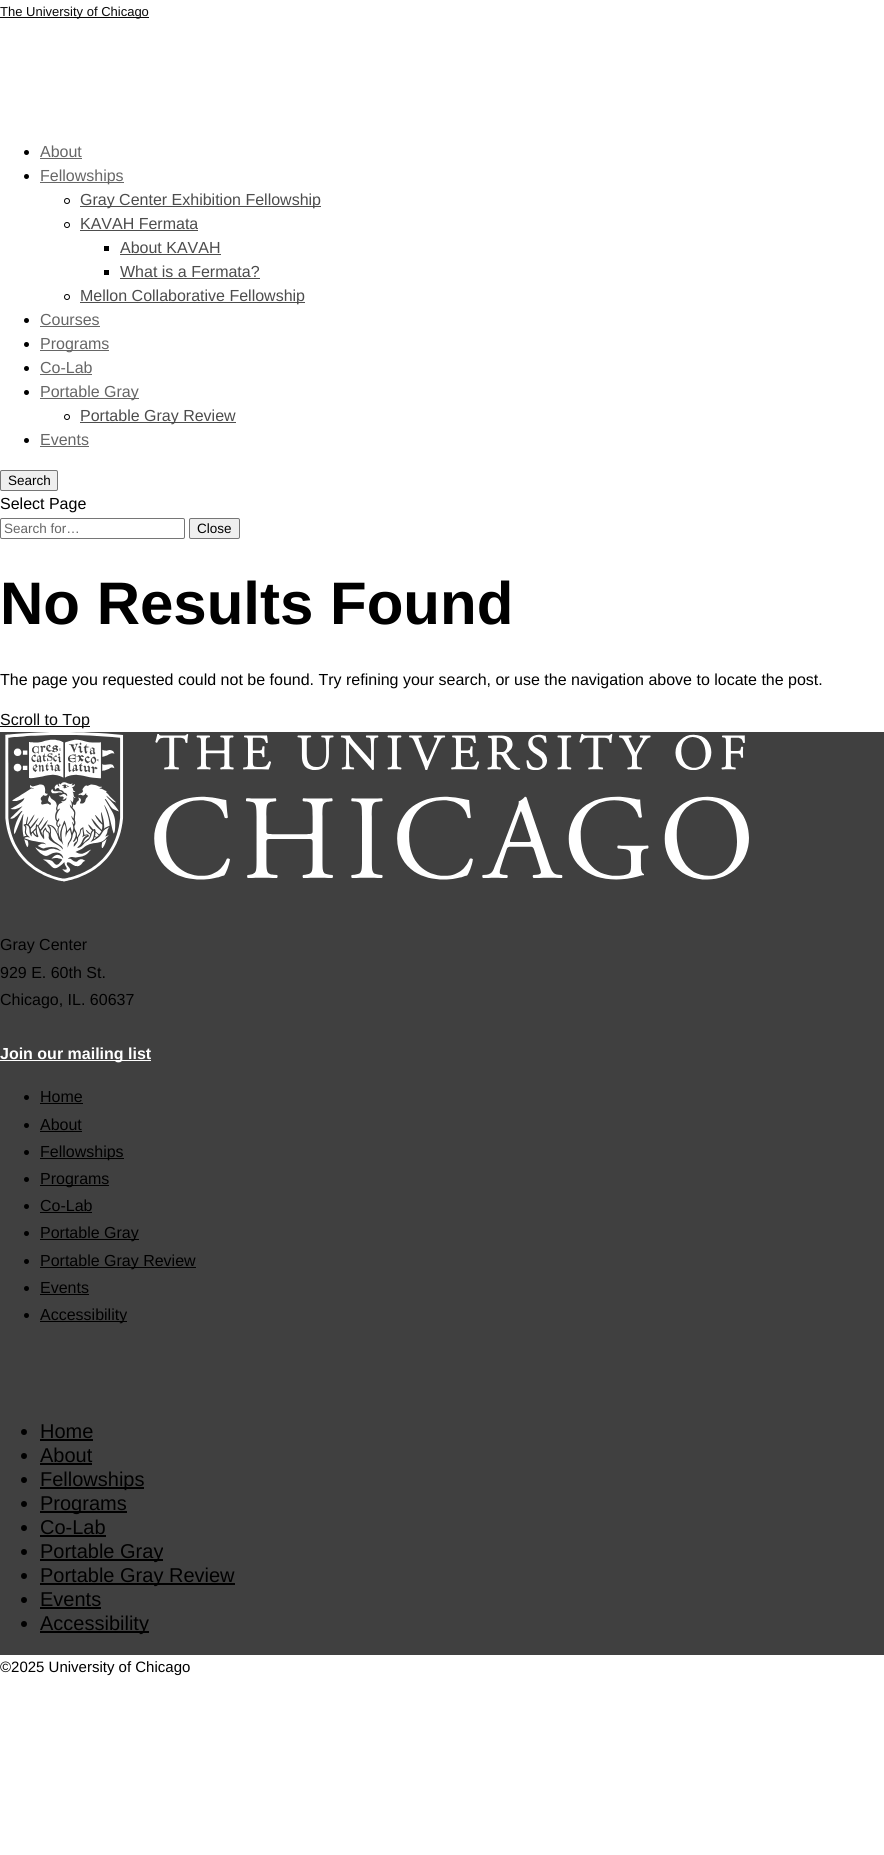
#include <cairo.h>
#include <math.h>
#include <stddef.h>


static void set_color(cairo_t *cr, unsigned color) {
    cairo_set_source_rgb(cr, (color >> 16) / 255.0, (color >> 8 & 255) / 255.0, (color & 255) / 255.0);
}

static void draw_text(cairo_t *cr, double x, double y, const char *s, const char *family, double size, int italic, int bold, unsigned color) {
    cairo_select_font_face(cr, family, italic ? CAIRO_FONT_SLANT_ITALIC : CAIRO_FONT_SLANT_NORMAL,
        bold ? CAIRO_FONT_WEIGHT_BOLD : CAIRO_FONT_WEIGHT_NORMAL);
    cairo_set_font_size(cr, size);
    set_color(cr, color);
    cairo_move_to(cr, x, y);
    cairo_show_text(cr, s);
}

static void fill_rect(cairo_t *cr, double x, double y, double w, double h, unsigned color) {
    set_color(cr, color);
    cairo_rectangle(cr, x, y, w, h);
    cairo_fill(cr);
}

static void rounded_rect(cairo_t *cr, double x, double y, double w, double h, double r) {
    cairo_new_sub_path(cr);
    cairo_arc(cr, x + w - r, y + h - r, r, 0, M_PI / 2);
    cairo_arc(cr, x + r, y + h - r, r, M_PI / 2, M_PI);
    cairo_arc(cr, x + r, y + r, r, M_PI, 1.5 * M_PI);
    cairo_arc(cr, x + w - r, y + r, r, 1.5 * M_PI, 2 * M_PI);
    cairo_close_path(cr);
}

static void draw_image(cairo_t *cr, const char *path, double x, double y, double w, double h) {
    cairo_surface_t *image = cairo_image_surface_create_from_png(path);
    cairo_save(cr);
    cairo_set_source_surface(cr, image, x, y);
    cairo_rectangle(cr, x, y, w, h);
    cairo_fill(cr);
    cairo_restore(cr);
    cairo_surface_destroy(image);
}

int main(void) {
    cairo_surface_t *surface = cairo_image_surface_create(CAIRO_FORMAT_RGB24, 884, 1855);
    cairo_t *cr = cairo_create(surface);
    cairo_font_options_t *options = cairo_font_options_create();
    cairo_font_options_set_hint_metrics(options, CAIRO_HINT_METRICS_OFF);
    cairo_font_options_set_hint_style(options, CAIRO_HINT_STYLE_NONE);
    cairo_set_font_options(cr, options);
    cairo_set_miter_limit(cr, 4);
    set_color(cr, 0xFFFFFF);
    cairo_paint(cr);
    fill_rect(cr, 0, 17, 149, 1, 0x0A0A0A);
    draw_text(cr, 0, 16, "The University of Chicago", "Liberation Sans", 13, 0, 0, 0x0A0A0A);
    set_color(cr, 0x000000);
    cairo_new_path(cr);
    cairo_arc(cr, 26.5, 152.5, 2.5, 0, 2 * M_PI);
    cairo_fill(cr);
    draw_text(cr, 40, 157, "About", "Liberation Sans", 16, 0, 0, 0x666666);
    fill_rect(cr, 40, 158, 42, 1, 0x666666);
    set_color(cr, 0x000000);
    cairo_new_path(cr);
    cairo_arc(cr, 26.5, 176.5, 2.5, 0, 2 * M_PI);
    cairo_fill(cr);
    fill_rect(cr, 40, 182, 84, 1, 0x666666);
    draw_text(cr, 40, 181, "Fellowships", "Liberation Sans", 16, 0, 0, 0x666666);
    cairo_new_path(cr);
    cairo_arc(cr, 67, 201, 2.5, 0, 2 * M_PI);
    set_color(cr, 0x000000);
    cairo_set_line_width(cr, 1);
    cairo_stroke(cr);
    fill_rect(cr, 80, 206, 241, 1, 0x4D4D4D);
    draw_text(cr, 80, 205, "Gray Center Exhibition Fellowship", "Liberation Sans", 16, 0, 0, 0x4C4C4C);
    cairo_new_path(cr);
    cairo_arc(cr, 67, 225, 2.5, 0, 2 * M_PI);
    set_color(cr, 0x000000);
    cairo_stroke(cr);
    draw_text(cr, 80, 229, "KAVAH Fermata", "Liberation Sans", 16, 0, 0, 0x4C4C4C);
    fill_rect(cr, 80, 230, 118, 1, 0x4D4D4D);
    fill_rect(cr, 104, 246, 5, 5, 0x000000);
    draw_text(cr, 120, 253, "About KAVAH", "Liberation Sans", 16, 0, 0, 0x4C4C4C);
    fill_rect(cr, 120, 254, 101, 1, 0x4D4D4D);
    fill_rect(cr, 104, 270, 5, 5, 0x000000);
    draw_text(cr, 120, 277, "What is a Fermata?", "Liberation Sans", 16, 0, 0, 0x4C4C4C);
    fill_rect(cr, 120, 278, 140, 1, 0x4D4D4D);
    cairo_new_path(cr);
    cairo_arc(cr, 67, 297, 2.5, 0, 2 * M_PI);
    set_color(cr, 0x000000);
    cairo_stroke(cr);
    fill_rect(cr, 80, 302, 225, 1, 0x4D4D4D);
    draw_text(cr, 80, 301, "Mellon Collaborative Fellowship", "Liberation Sans", 16, 0, 0, 0x4C4C4C);
    set_color(cr, 0x000000);
    cairo_new_path(cr);
    cairo_arc(cr, 26.5, 320.5, 2.5, 0, 2 * M_PI);
    cairo_fill(cr);
    draw_text(cr, 40, 325, "Courses", "Liberation Sans", 16, 0, 0, 0x666666);
    fill_rect(cr, 40, 326, 60, 1, 0x666666);
    set_color(cr, 0x000000);
    cairo_new_path(cr);
    cairo_arc(cr, 26.5, 344.5, 2.5, 0, 2 * M_PI);
    cairo_fill(cr);
    fill_rect(cr, 40, 350, 69, 1, 0x666666);
    draw_text(cr, 40, 349, "Programs", "Liberation Sans", 16, 0, 0, 0x666666);
    set_color(cr, 0x000000);
    cairo_new_path(cr);
    cairo_arc(cr, 26.5, 368.5, 2.5, 0, 2 * M_PI);
    cairo_fill(cr);
    draw_text(cr, 40, 373, "Co-Lab", "Liberation Sans", 16, 0, 0, 0x666666);
    fill_rect(cr, 40, 374, 52, 1, 0x666666);
    set_color(cr, 0x000000);
    cairo_new_path(cr);
    cairo_arc(cr, 26.5, 392.5, 2.5, 0, 2 * M_PI);
    cairo_fill(cr);
    fill_rect(cr, 40, 398, 99, 1, 0x666666);
    draw_text(cr, 40, 397, "Portable Gray", "Liberation Sans", 16, 0, 0, 0x666666);
    cairo_new_path(cr);
    cairo_arc(cr, 67, 417, 2.5, 0, 2 * M_PI);
    set_color(cr, 0x000000);
    cairo_stroke(cr);
    fill_rect(cr, 80, 422, 156, 1, 0x4D4D4D);
    draw_text(cr, 80, 421, "Portable Gray Review", "Liberation Sans", 16, 0, 0, 0x4C4C4C);
    set_color(cr, 0x000000);
    cairo_new_path(cr);
    cairo_arc(cr, 26.5, 440.5, 2.5, 0, 2 * M_PI);
    cairo_fill(cr);
    draw_text(cr, 40, 445, "Events", "Liberation Sans", 16, 0, 0, 0x666666);
    fill_rect(cr, 40, 446, 49, 1, 0x666666);
    set_color(cr, 0xEFEFEF);
    rounded_rect(cr, 0.5, 470.5, 57, 20, 1.5);
    cairo_fill_preserve(cr);
    set_color(cr, 0x767676);
    cairo_stroke(cr);
    draw_text(cr, 8, 485, "Search", "Liberation Sans", 13.5, 0, 0, 0x000000);
    draw_text(cr, 0, 509, "Select Page", "Liberation Sans", 16, 0, 0, 0x000000);
    rounded_rect(cr, 0.5, 518.5, 184, 20, 1.5);
    set_color(cr, 0x767676);
    cairo_stroke(cr);
    draw_text(cr, 4, 533, "Search for…", "Liberation Sans", 13.5, 0, 0, 0x666666);
    set_color(cr, 0xEFEFEF);
    rounded_rect(cr, 189.5, 518.5, 50, 20, 1.5);
    cairo_fill_preserve(cr);
    set_color(cr, 0x767676);
    cairo_stroke(cr);
    draw_text(cr, 197, 533, "Close", "Liberation Sans", 13.5, 0, 0, 0x000000);
    draw_text(cr, 0, 624, "No Results Found", "Liberation Sans", 60, 0, 1, 0x000000);
    draw_text(cr, 0, 685, "The page you requested could not be found. Try refining your search, or use the navigation above to locate the post.", "Liberation Sans", 16, 0, 0, 0x000000);
    fill_rect(cr, 0, 726, 90, 1, 0x0A0A0A);
    draw_text(cr, 0, 725, "Scroll to Top", "Liberation Sans", 16, 0, 0, 0x0A0A0A);
    fill_rect(cr, 0, 732, 884, 923, 0x404040);
    draw_image(cr, "assets/img1.png", 5, 732, 744, 150);
    draw_text(cr, 0, 950, "Gray Center", "Liberation Sans", 16, 0, 0, 0x000000);
    draw_text(cr, 0, 978, "929 E. 60th St.", "Liberation Sans", 16, 0, 0, 0x000000);
    draw_text(cr, 0, 1005, "Chicago, IL. 60637", "Liberation Sans", 16, 0, 0, 0x000000);
    fill_rect(cr, 0, 1060, 151, 1, 0xFFFFFF);
    draw_text(cr, 0, 1059, "Join our mailing list", "Liberation Sans", 16, 0, 1, 0xFFFFFF);
    set_color(cr, 0x000000);
    cairo_new_path(cr);
    cairo_arc(cr, 26.5, 1097.5, 2.5, 0, 2 * M_PI);
    cairo_fill(cr);
    draw_text(cr, 40, 1102, "Home", "Liberation Sans", 16, 0, 0, 0x000000);
    fill_rect(cr, 40, 1103, 43, 1, 0x000000);
    cairo_new_path(cr);
    cairo_arc(cr, 26.5, 1125.5, 2.5, 0, 2 * M_PI);
    cairo_fill(cr);
    draw_text(cr, 40, 1130, "About", "Liberation Sans", 16, 0, 0, 0x000000);
    fill_rect(cr, 40, 1131, 42, 1, 0x000000);
    cairo_new_path(cr);
    cairo_arc(cr, 26.5, 1152.5, 2.5, 0, 2 * M_PI);
    cairo_fill(cr);
    fill_rect(cr, 40, 1158, 84, 1, 0x000000);
    draw_text(cr, 40, 1157, "Fellowships", "Liberation Sans", 16, 0, 0, 0x000000);
    cairo_new_path(cr);
    cairo_arc(cr, 26.5, 1179.5, 2.5, 0, 2 * M_PI);
    cairo_fill(cr);
    fill_rect(cr, 40, 1185, 69, 1, 0x000000);
    draw_text(cr, 40, 1184, "Programs", "Liberation Sans", 16, 0, 0, 0x000000);
    cairo_new_path(cr);
    cairo_arc(cr, 26.5, 1206.5, 2.5, 0, 2 * M_PI);
    cairo_fill(cr);
    draw_text(cr, 40, 1211, "Co-Lab", "Liberation Sans", 16, 0, 0, 0x000000);
    fill_rect(cr, 40, 1212, 52, 1, 0x000000);
    cairo_new_path(cr);
    cairo_arc(cr, 26.5, 1233.5, 2.5, 0, 2 * M_PI);
    cairo_fill(cr);
    fill_rect(cr, 40, 1239, 99, 1, 0x000000);
    draw_text(cr, 40, 1238, "Portable Gray", "Liberation Sans", 16, 0, 0, 0x000000);
    cairo_new_path(cr);
    cairo_arc(cr, 26.5, 1261.5, 2.5, 0, 2 * M_PI);
    cairo_fill(cr);
    fill_rect(cr, 40, 1267, 156, 1, 0x000000);
    draw_text(cr, 40, 1266, "Portable Gray Review", "Liberation Sans", 16, 0, 0, 0x000000);
    cairo_new_path(cr);
    cairo_arc(cr, 26.5, 1288.5, 2.5, 0, 2 * M_PI);
    cairo_fill(cr);
    draw_text(cr, 40, 1293, "Events", "Liberation Sans", 16, 0, 0, 0x000000);
    fill_rect(cr, 40, 1294, 49, 1, 0x000000);
    cairo_new_path(cr);
    cairo_arc(cr, 26.5, 1315.5, 2.5, 0, 2 * M_PI);
    cairo_fill(cr);
    fill_rect(cr, 40, 1321, 87, 1, 0x000000);
    draw_text(cr, 40, 1320, "Accessibility", "Liberation Sans", 16, 0, 0, 0x000000);
    cairo_new_path(cr);
    cairo_arc(cr, 24, 1432, 3, 0, 2 * M_PI);
    cairo_fill(cr);
    draw_text(cr, 40, 1438, "Home", "Liberation Sans", 20, 0, 0, 0x000000);
    fill_rect(cr, 40, 1439, 53, 2, 0x000000);
    cairo_new_path(cr);
    cairo_arc(cr, 24, 1456, 3, 0, 2 * M_PI);
    cairo_fill(cr);
    draw_text(cr, 40, 1462, "About", "Liberation Sans", 20, 0, 0, 0x000000);
    fill_rect(cr, 40, 1463, 52, 2, 0x000000);
    cairo_new_path(cr);
    cairo_arc(cr, 24, 1480, 3, 0, 2 * M_PI);
    cairo_fill(cr);
    fill_rect(cr, 40, 1487, 104, 2, 0x000000);
    draw_text(cr, 40, 1486, "Fellowships", "Liberation Sans", 20, 0, 0, 0x000000);
    cairo_new_path(cr);
    cairo_arc(cr, 24, 1504, 3, 0, 2 * M_PI);
    cairo_fill(cr);
    fill_rect(cr, 40, 1511, 87, 2, 0x000000);
    draw_text(cr, 40, 1510, "Programs", "Liberation Sans", 20, 0, 0, 0x000000);
    cairo_new_path(cr);
    cairo_arc(cr, 24, 1528, 3, 0, 2 * M_PI);
    cairo_fill(cr);
    draw_text(cr, 40, 1534, "Co-Lab", "Liberation Sans", 20, 0, 0, 0x000000);
    fill_rect(cr, 40, 1535, 66, 2, 0x000000);
    cairo_new_path(cr);
    cairo_arc(cr, 24, 1552, 3, 0, 2 * M_PI);
    cairo_fill(cr);
    fill_rect(cr, 40, 1559, 123, 2, 0x000000);
    draw_text(cr, 40, 1558, "Portable Gray", "Liberation Sans", 20, 0, 0, 0x000000);
    cairo_new_path(cr);
    cairo_arc(cr, 24, 1576, 3, 0, 2 * M_PI);
    cairo_fill(cr);
    fill_rect(cr, 40, 1583, 195, 2, 0x000000);
    draw_text(cr, 40, 1582, "Portable Gray Review", "Liberation Sans", 20, 0, 0, 0x000000);
    cairo_new_path(cr);
    cairo_arc(cr, 24, 1600, 3, 0, 2 * M_PI);
    cairo_fill(cr);
    draw_text(cr, 40, 1606, "Events", "Liberation Sans", 20, 0, 0, 0x000000);
    fill_rect(cr, 40, 1607, 61, 2, 0x000000);
    cairo_new_path(cr);
    cairo_arc(cr, 24, 1624, 3, 0, 2 * M_PI);
    cairo_fill(cr);
    fill_rect(cr, 40, 1631, 109, 2, 0x000000);
    draw_text(cr, 40, 1630, "Accessibility", "Liberation Sans", 20, 0, 0, 0x000000);
    draw_text(cr, 0, 1672, "©2025 University of Chicago", "Liberation Sans", 15, 0, 0, 0x000000);
    cairo_surface_write_to_png(surface, "output.png");
    cairo_font_options_destroy(options);
    cairo_destroy(cr);
    cairo_surface_destroy(surface);
    return 0;
}
